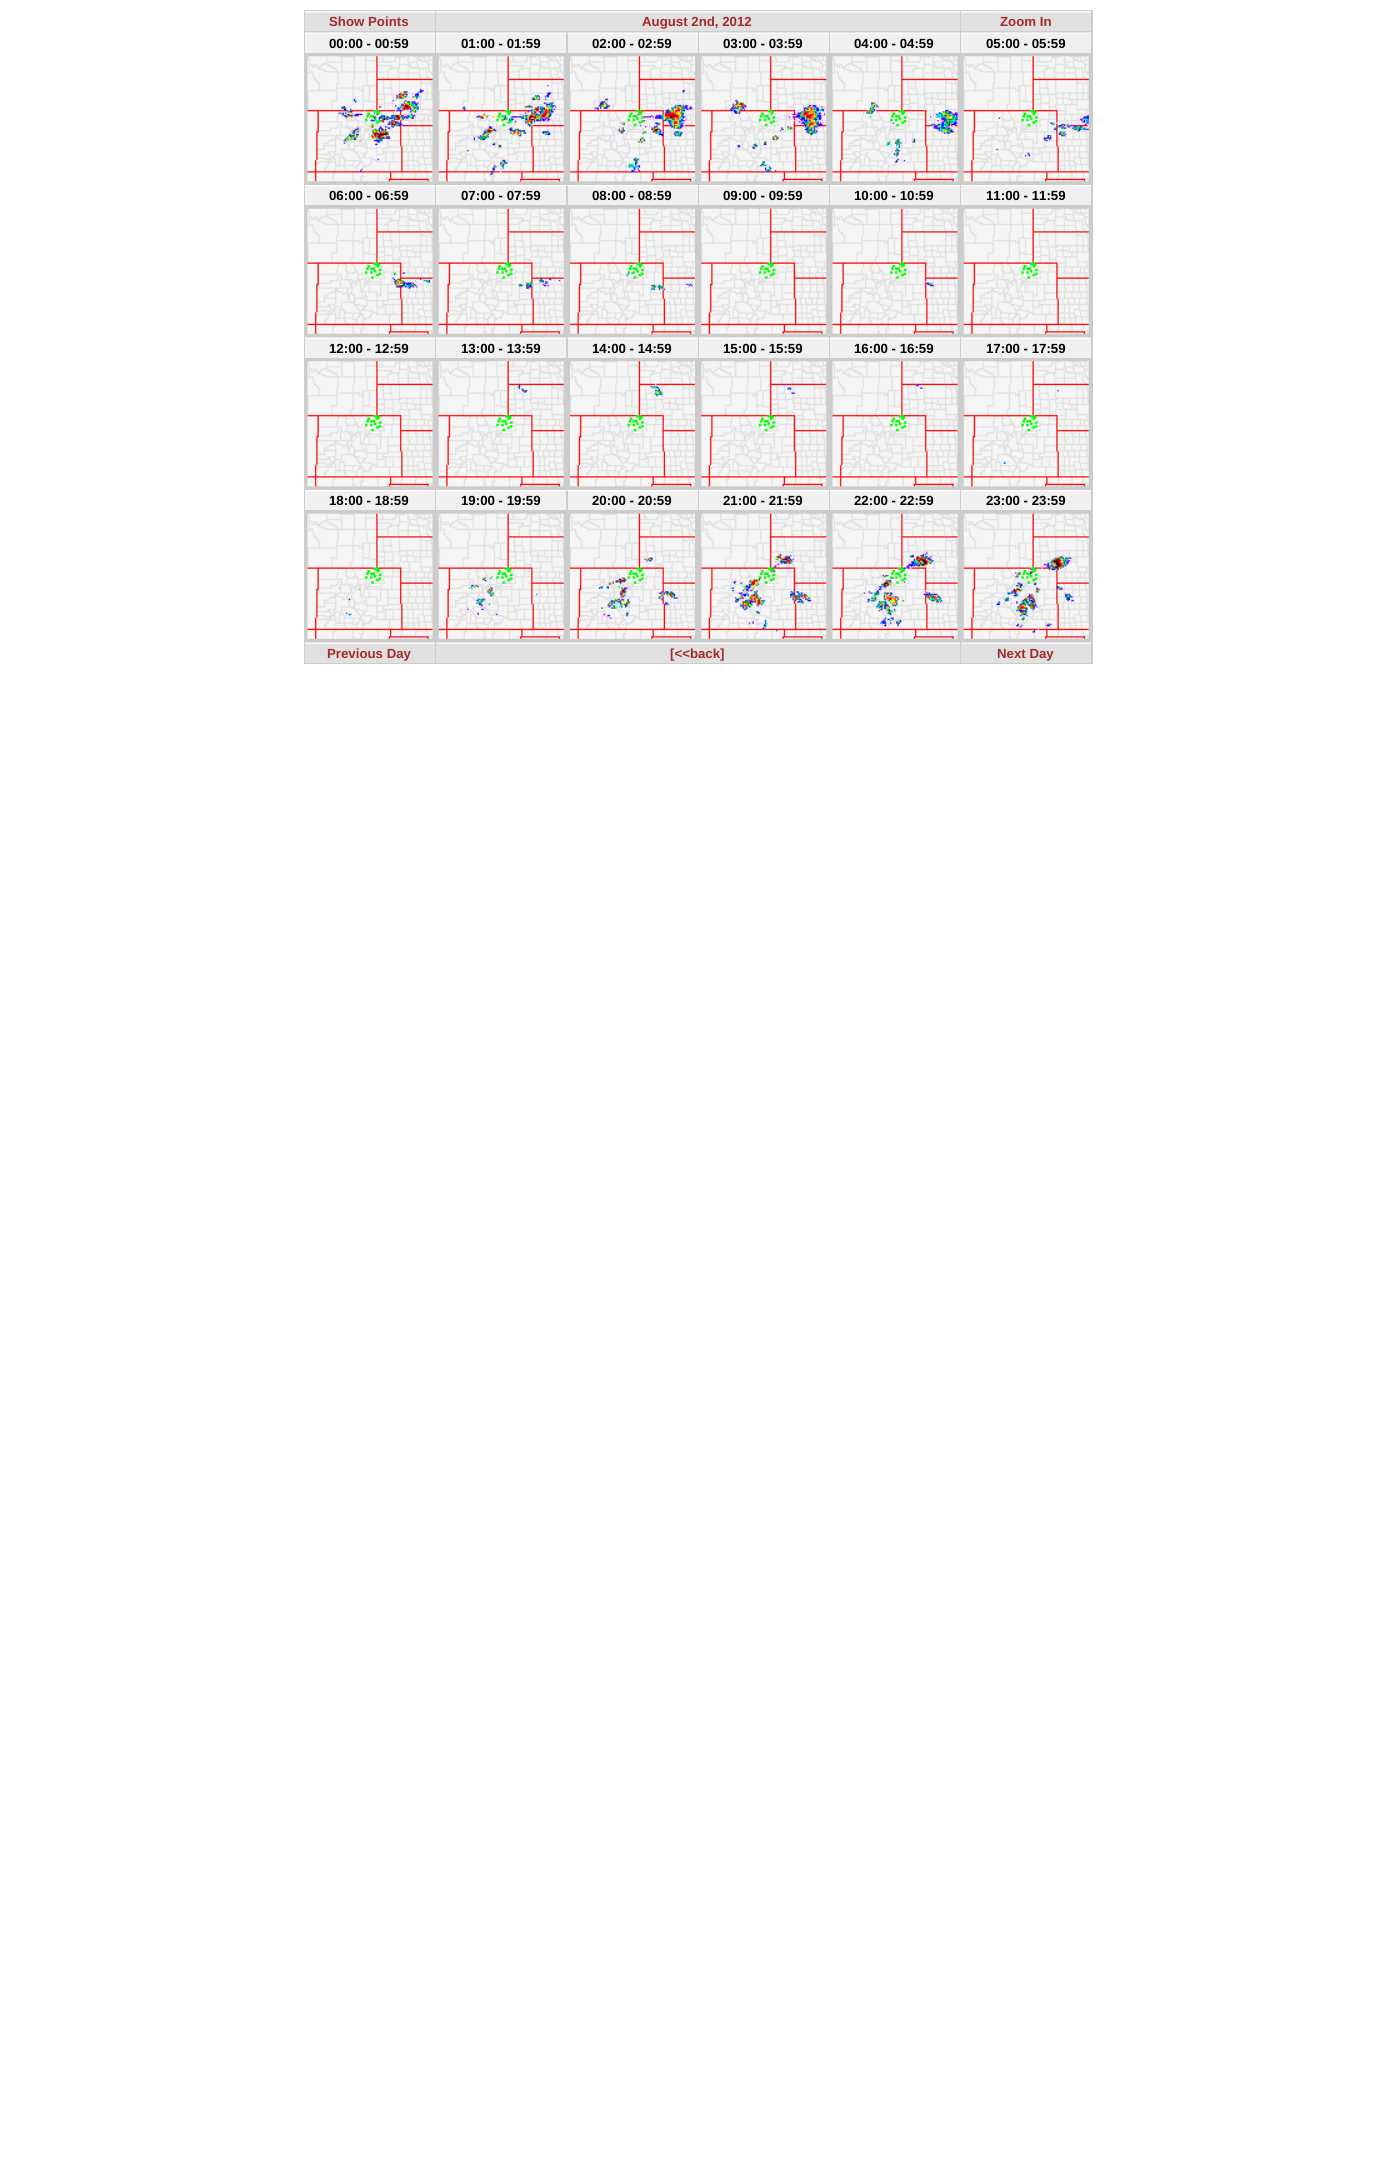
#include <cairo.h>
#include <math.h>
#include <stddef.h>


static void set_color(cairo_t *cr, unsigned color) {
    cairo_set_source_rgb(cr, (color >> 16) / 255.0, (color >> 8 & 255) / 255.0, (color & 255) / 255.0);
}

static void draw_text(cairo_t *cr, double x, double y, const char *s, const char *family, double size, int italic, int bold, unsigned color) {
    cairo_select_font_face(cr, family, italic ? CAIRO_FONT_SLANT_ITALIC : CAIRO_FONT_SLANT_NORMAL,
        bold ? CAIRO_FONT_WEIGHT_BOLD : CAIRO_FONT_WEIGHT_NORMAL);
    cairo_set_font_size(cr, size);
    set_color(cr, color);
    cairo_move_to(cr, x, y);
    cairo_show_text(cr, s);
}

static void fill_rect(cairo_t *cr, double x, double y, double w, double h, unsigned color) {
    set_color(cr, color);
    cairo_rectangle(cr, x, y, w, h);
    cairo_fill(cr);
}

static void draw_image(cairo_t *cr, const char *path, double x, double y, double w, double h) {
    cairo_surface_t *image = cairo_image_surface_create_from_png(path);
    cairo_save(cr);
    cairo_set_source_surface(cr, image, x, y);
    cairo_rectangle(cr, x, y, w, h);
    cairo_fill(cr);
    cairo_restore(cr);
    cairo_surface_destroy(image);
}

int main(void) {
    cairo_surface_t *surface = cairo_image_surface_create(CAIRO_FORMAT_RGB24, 1395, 2173);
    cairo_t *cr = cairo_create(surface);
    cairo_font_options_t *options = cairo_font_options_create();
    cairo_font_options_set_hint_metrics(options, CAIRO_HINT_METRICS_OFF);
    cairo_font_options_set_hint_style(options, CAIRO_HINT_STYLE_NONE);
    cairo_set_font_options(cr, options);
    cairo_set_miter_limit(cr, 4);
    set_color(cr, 0xFFFFFF);
    cairo_paint(cr);
    fill_rect(cr, 304, 10, 789, 654, 0xCCCCCC);
    fill_rect(cr, 305, 11, 130, 20, 0xE0E0E0);
    draw_image(cr, "assets/img1.png", 305, 11, 130, 2);
    draw_text(cr, 329, 26, "Show Points", "Liberation Sans", 13.25, 0, 1, 0xA52A2A);
    fill_rect(cr, 436, 11, 524, 20, 0xE0E0E0);
    draw_image(cr, "assets/img2.png", 436, 11, 524, 2);
    draw_text(cr, 642, 26, "August 2nd, 2012", "Liberation Sans", 13.25, 0, 1, 0xA52A2A);
    fill_rect(cr, 961, 11, 130, 20, 0xE0E0E0);
    draw_image(cr, "assets/img3.png", 961, 11, 131, 2);
    draw_text(cr, 1000, 26, "Zoom In", "Liberation Sans", 13.25, 0, 1, 0xA52A2A);
    fill_rect(cr, 305, 33, 130, 20, 0xF0F0F0);
    draw_image(cr, "assets/img4.png", 305, 32, 130, 2);
    draw_text(cr, 329, 48, "00:00 - 00:59", "Liberation Sans", 13.25, 0, 1, 0x000000);
    fill_rect(cr, 436, 33, 130, 20, 0xF0F0F0);
    draw_image(cr, "assets/img5.png", 436, 32, 131, 2);
    draw_text(cr, 461, 48, "01:00 - 01:59", "Liberation Sans", 13.25, 0, 1, 0x000000);
    fill_rect(cr, 568, 33, 130, 20, 0xF0F0F0);
    draw_image(cr, "assets/img6.png", 567, 32, 131, 2);
    draw_text(cr, 592, 48, "02:00 - 02:59", "Liberation Sans", 13.25, 0, 1, 0x000000);
    fill_rect(cr, 699, 33, 130, 20, 0xF0F0F0);
    draw_image(cr, "assets/img7.png", 698, 32, 131, 2);
    draw_text(cr, 723, 48, "03:00 - 03:59", "Liberation Sans", 13.25, 0, 1, 0x000000);
    fill_rect(cr, 830, 33, 130, 20, 0xF0F0F0);
    draw_image(cr, "assets/img4.png", 830, 32, 130, 2);
    draw_text(cr, 854, 48, "04:00 - 04:59", "Liberation Sans", 13.25, 0, 1, 0x000000);
    fill_rect(cr, 961, 33, 130, 20, 0xF0F0F0);
    draw_image(cr, "assets/img5.png", 961, 32, 131, 2);
    draw_text(cr, 986, 48, "05:00 - 05:59", "Liberation Sans", 13.25, 0, 1, 0x000000);
    draw_image(cr, "assets/img8.png", 307, 56, 126, 126);
    draw_image(cr, "assets/img9.png", 438, 56, 126, 126);
    draw_image(cr, "assets/img10.png", 570, 56, 125, 126);
    draw_image(cr, "assets/img11.png", 701, 56, 126, 126);
    draw_image(cr, "assets/img12.png", 832, 56, 126, 126);
    draw_image(cr, "assets/img13.png", 963, 56, 126, 126);
    fill_rect(cr, 305, 186, 130, 19, 0xF0F0F0);
    draw_image(cr, "assets/img14.png", 305, 185, 130, 2);
    draw_text(cr, 329, 200, "06:00 - 06:59", "Liberation Sans", 13.25, 0, 1, 0x000000);
    fill_rect(cr, 436, 185, 130, 20, 0xF0F0F0);
    draw_image(cr, "assets/img15.png", 436, 185, 131, 2);
    draw_text(cr, 461, 200, "07:00 - 07:59", "Liberation Sans", 13.25, 0, 1, 0x000000);
    fill_rect(cr, 568, 185, 130, 20, 0xF0F0F0);
    draw_image(cr, "assets/img16.png", 567, 185, 131, 2);
    draw_text(cr, 592, 200, "08:00 - 08:59", "Liberation Sans", 13.25, 0, 1, 0x000000);
    fill_rect(cr, 699, 185, 130, 20, 0xF0F0F0);
    draw_image(cr, "assets/img17.png", 698, 185, 131, 2);
    draw_text(cr, 723, 200, "09:00 - 09:59", "Liberation Sans", 13.25, 0, 1, 0x000000);
    fill_rect(cr, 830, 186, 130, 19, 0xF0F0F0);
    draw_image(cr, "assets/img14.png", 830, 185, 130, 2);
    draw_text(cr, 854, 200, "10:00 - 10:59", "Liberation Sans", 13.25, 0, 1, 0x000000);
    fill_rect(cr, 961, 185, 130, 20, 0xF0F0F0);
    draw_image(cr, "assets/img15.png", 961, 185, 131, 2);
    draw_text(cr, 986, 200, "11:00 - 11:59", "Liberation Sans", 13.25, 0, 1, 0x000000);
    draw_image(cr, "assets/img18.png", 307, 208, 126, 126);
    draw_image(cr, "assets/img19.png", 438, 208, 126, 126);
    draw_image(cr, "assets/img20.png", 570, 208, 125, 126);
    draw_image(cr, "assets/img21.png", 701, 208, 126, 126);
    draw_image(cr, "assets/img22.png", 832, 208, 126, 126);
    draw_image(cr, "assets/img23.png", 963, 208, 126, 126);
    fill_rect(cr, 305, 338, 130, 20, 0xF0F0F0);
    draw_image(cr, "assets/img24.png", 305, 337, 130, 2);
    draw_text(cr, 329, 353, "12:00 - 12:59", "Liberation Sans", 13.25, 0, 1, 0x000000);
    fill_rect(cr, 436, 338, 130, 20, 0xF0F0F0);
    draw_image(cr, "assets/img25.png", 436, 337, 131, 2);
    draw_text(cr, 461, 353, "13:00 - 13:59", "Liberation Sans", 13.25, 0, 1, 0x000000);
    fill_rect(cr, 568, 338, 130, 20, 0xF0F0F0);
    draw_image(cr, "assets/img26.png", 567, 337, 131, 2);
    draw_text(cr, 592, 353, "14:00 - 14:59", "Liberation Sans", 13.25, 0, 1, 0x000000);
    fill_rect(cr, 699, 338, 130, 20, 0xF0F0F0);
    draw_image(cr, "assets/img27.png", 698, 337, 131, 2);
    draw_text(cr, 723, 353, "15:00 - 15:59", "Liberation Sans", 13.25, 0, 1, 0x000000);
    fill_rect(cr, 830, 338, 130, 20, 0xF0F0F0);
    draw_image(cr, "assets/img24.png", 830, 337, 130, 2);
    draw_text(cr, 854, 353, "16:00 - 16:59", "Liberation Sans", 13.25, 0, 1, 0x000000);
    fill_rect(cr, 961, 338, 130, 20, 0xF0F0F0);
    draw_image(cr, "assets/img25.png", 961, 337, 131, 2);
    draw_text(cr, 986, 353, "17:00 - 17:59", "Liberation Sans", 13.25, 0, 1, 0x000000);
    draw_image(cr, "assets/img28.png", 307, 361, 126, 126);
    draw_image(cr, "assets/img29.png", 438, 361, 126, 126);
    draw_image(cr, "assets/img30.png", 570, 361, 125, 126);
    draw_image(cr, "assets/img31.png", 701, 361, 126, 126);
    draw_image(cr, "assets/img32.png", 832, 361, 126, 126);
    draw_image(cr, "assets/img33.png", 963, 361, 126, 126);
    fill_rect(cr, 305, 491, 130, 19, 0xF0F0F0);
    draw_image(cr, "assets/img34.png", 305, 490, 130, 2);
    draw_text(cr, 329, 505, "18:00 - 18:59", "Liberation Sans", 13.25, 0, 1, 0x000000);
    fill_rect(cr, 436, 490, 130, 20, 0xF0F0F0);
    draw_image(cr, "assets/img35.png", 436, 490, 131, 2);
    draw_text(cr, 461, 505, "19:00 - 19:59", "Liberation Sans", 13.25, 0, 1, 0x000000);
    fill_rect(cr, 568, 490, 130, 20, 0xF0F0F0);
    draw_image(cr, "assets/img36.png", 567, 490, 131, 2);
    draw_text(cr, 592, 505, "20:00 - 20:59", "Liberation Sans", 13.25, 0, 1, 0x000000);
    fill_rect(cr, 699, 490, 130, 20, 0xF0F0F0);
    draw_image(cr, "assets/img37.png", 698, 490, 131, 2);
    draw_text(cr, 723, 505, "21:00 - 21:59", "Liberation Sans", 13.25, 0, 1, 0x000000);
    fill_rect(cr, 830, 491, 130, 19, 0xF0F0F0);
    draw_image(cr, "assets/img34.png", 830, 490, 130, 2);
    draw_text(cr, 854, 505, "22:00 - 22:59", "Liberation Sans", 13.25, 0, 1, 0x000000);
    fill_rect(cr, 961, 490, 130, 20, 0xF0F0F0);
    draw_image(cr, "assets/img35.png", 961, 490, 131, 2);
    draw_text(cr, 986, 505, "23:00 - 23:59", "Liberation Sans", 13.25, 0, 1, 0x000000);
    draw_image(cr, "assets/img38.png", 307, 513, 126, 126);
    draw_image(cr, "assets/img39.png", 438, 513, 126, 126);
    draw_image(cr, "assets/img40.png", 570, 513, 125, 126);
    draw_image(cr, "assets/img41.png", 701, 513, 126, 126);
    draw_image(cr, "assets/img42.png", 832, 513, 126, 126);
    draw_image(cr, "assets/img43.png", 963, 513, 126, 126);
    fill_rect(cr, 305, 643, 130, 20, 0xE0E0E0);
    draw_image(cr, "assets/img44.png", 305, 642, 130, 2);
    draw_text(cr, 327, 658, "Previous Day", "Liberation Sans", 13.25, 0, 1, 0xA52A2A);
    fill_rect(cr, 436, 643, 524, 20, 0xE0E0E0);
    draw_image(cr, "assets/img45.png", 436, 642, 524, 2);
    draw_text(cr, 670, 658, "[<<back]", "Liberation Sans", 13.25, 0, 1, 0xA52A2A);
    fill_rect(cr, 961, 643, 130, 20, 0xE0E0E0);
    draw_image(cr, "assets/img46.png", 961, 642, 131, 2);
    draw_text(cr, 997, 658, "Next Day", "Liberation Sans", 13.25, 0, 1, 0xA52A2A);
    cairo_surface_write_to_png(surface, "output.png");
    cairo_font_options_destroy(options);
    cairo_destroy(cr);
    cairo_surface_destroy(surface);
    return 0;
}
